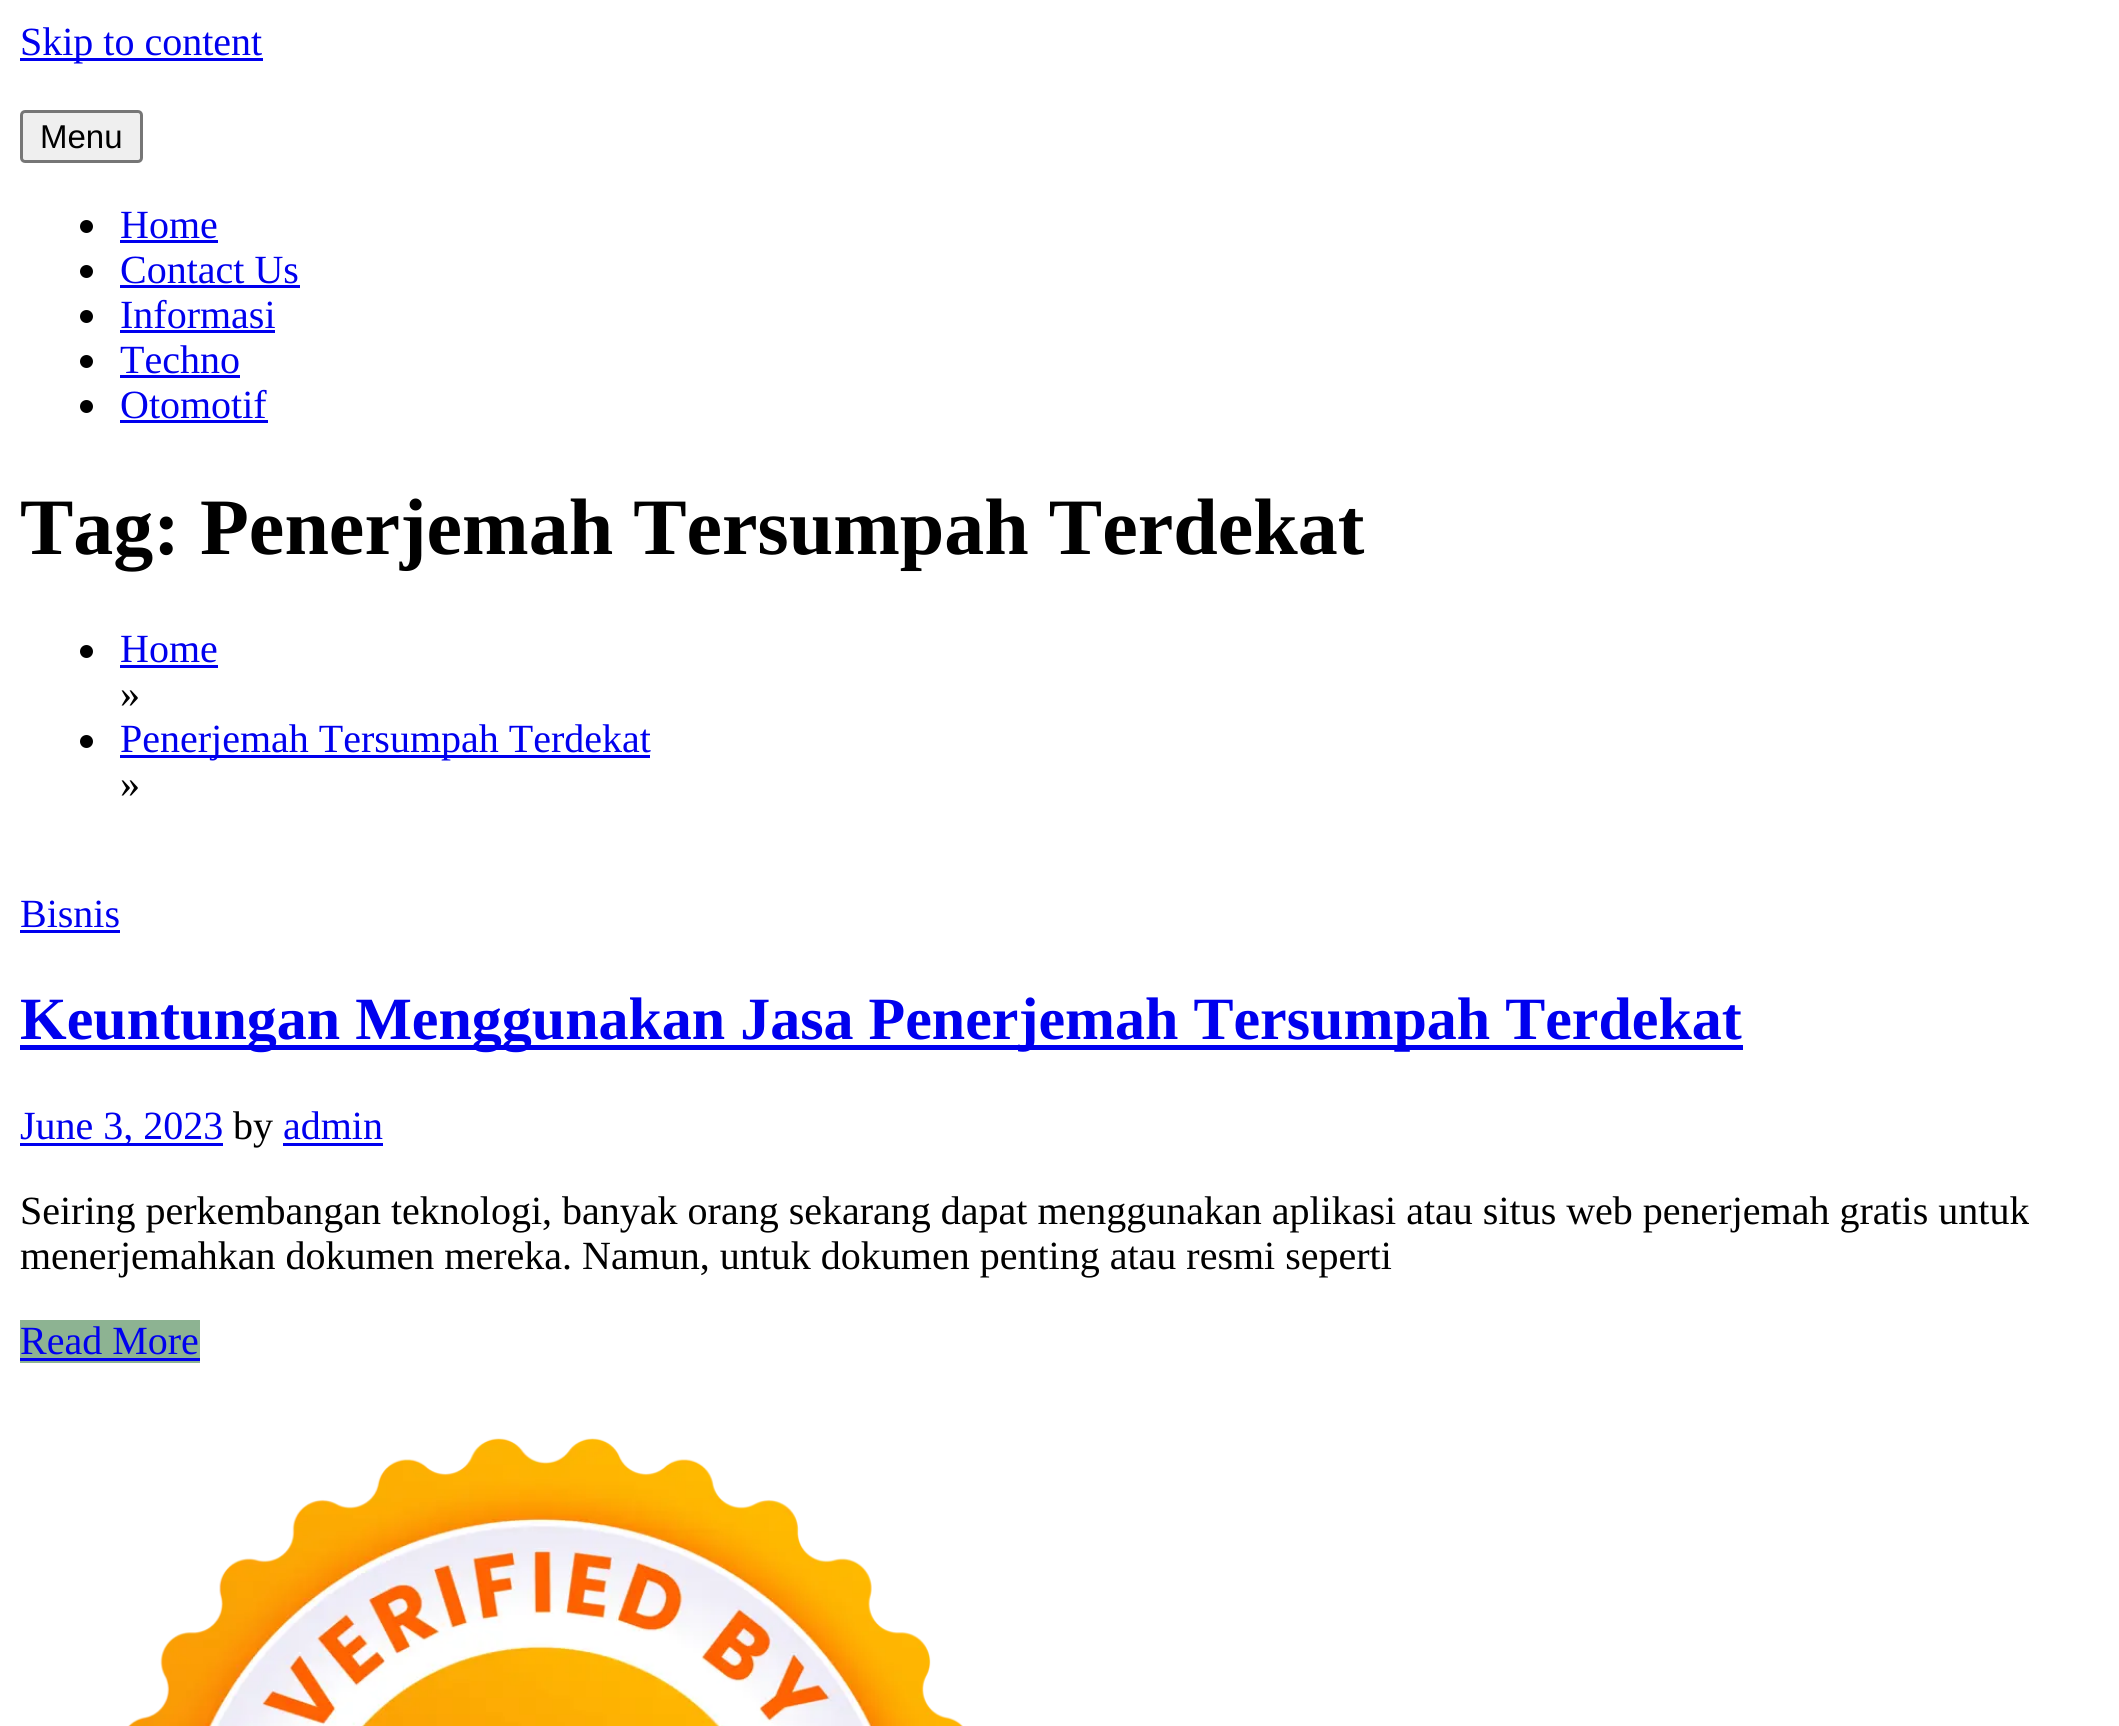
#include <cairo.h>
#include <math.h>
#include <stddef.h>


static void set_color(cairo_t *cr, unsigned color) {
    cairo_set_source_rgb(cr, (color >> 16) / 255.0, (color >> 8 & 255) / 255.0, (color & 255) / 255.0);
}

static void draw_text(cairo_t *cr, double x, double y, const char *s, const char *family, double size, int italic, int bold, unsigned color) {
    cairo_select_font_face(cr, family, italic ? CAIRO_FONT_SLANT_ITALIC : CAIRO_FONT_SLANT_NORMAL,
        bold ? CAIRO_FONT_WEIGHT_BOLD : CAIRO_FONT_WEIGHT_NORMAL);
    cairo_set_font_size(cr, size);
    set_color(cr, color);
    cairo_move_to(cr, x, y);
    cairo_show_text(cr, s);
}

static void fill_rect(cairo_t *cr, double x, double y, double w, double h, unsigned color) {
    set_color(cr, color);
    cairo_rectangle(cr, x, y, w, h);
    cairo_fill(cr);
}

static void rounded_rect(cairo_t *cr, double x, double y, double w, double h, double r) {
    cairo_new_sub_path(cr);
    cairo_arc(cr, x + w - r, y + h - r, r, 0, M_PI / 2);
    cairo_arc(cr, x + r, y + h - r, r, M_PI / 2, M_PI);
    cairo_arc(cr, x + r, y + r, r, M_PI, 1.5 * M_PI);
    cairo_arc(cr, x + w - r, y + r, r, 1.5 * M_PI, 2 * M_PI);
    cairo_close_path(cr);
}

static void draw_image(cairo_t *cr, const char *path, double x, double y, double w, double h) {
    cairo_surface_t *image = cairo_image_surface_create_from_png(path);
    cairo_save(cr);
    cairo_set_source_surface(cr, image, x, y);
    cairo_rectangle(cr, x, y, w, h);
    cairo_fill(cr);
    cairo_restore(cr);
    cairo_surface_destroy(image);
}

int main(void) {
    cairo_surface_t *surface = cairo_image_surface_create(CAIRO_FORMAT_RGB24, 2119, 1726);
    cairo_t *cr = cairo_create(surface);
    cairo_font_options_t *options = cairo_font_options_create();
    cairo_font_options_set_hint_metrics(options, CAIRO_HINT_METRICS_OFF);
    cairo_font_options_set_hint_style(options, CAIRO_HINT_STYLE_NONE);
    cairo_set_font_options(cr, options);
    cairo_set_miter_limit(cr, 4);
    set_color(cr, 0xFFFFFF);
    cairo_paint(cr);
    fill_rect(cr, 20, 58, 243, 3, 0x0000EE);
    draw_text(cr, 20, 55, "Skip to content", "Liberation Serif", 40, 0, 0, 0x0000EE);
    set_color(cr, 0xEFEFEF);
    rounded_rect(cr, 21.5, 111.5, 120, 50, 3.5);
    cairo_fill_preserve(cr);
    set_color(cr, 0x767676);
    cairo_set_line_width(cr, 3);
    cairo_stroke(cr);
    draw_text(cr, 40, 148, "Menu", "Liberation Sans", 33, 0, 0, 0x000000);
    cairo_new_path(cr);
    cairo_arc(cr, 86.5, 226.5, 6.5, 0, 2 * M_PI);
    cairo_fill(cr);
    draw_text(cr, 120, 238, "Home", "Liberation Serif", 40, 0, 0, 0x0000EE);
    fill_rect(cr, 120, 240, 98, 3, 0x0000EE);
    set_color(cr, 0x000000);
    cairo_new_path(cr);
    cairo_arc(cr, 86.5, 271.5, 6.5, 0, 2 * M_PI);
    cairo_fill(cr);
    draw_text(cr, 120, 283, "Contact Us", "Liberation Serif", 40, 0, 0, 0x0000EE);
    fill_rect(cr, 120, 285, 180, 3, 0x0000EE);
    set_color(cr, 0x000000);
    cairo_new_path(cr);
    cairo_arc(cr, 86.5, 316.5, 6.5, 0, 2 * M_PI);
    cairo_fill(cr);
    draw_text(cr, 120, 328, "Informasi", "Liberation Serif", 40, 0, 0, 0x0000EE);
    fill_rect(cr, 120, 330, 155, 3, 0x0000EE);
    set_color(cr, 0x000000);
    cairo_new_path(cr);
    cairo_arc(cr, 86.5, 361.5, 6.5, 0, 2 * M_PI);
    cairo_fill(cr);
    draw_text(cr, 120, 373, "Techno", "Liberation Serif", 40, 0, 0, 0x0000EE);
    fill_rect(cr, 120, 375, 120, 3, 0x0000EE);
    set_color(cr, 0x000000);
    cairo_new_path(cr);
    cairo_arc(cr, 86.5, 406.5, 6.5, 0, 2 * M_PI);
    cairo_fill(cr);
    draw_text(cr, 120, 418, "Otomotif", "Liberation Serif", 40, 0, 0, 0x0000EE);
    fill_rect(cr, 120, 420, 148, 3, 0x0000EE);
    draw_text(cr, 20, 554, "Tag: Penerjemah Tersumpah Terdekat", "Liberation Serif", 80, 0, 1, 0x000000);
    cairo_new_path(cr);
    cairo_arc(cr, 86.5, 651.5, 6.5, 0, 2 * M_PI);
    cairo_fill(cr);
    draw_text(cr, 120, 662, "Home", "Liberation Serif", 40, 0, 0, 0x0000EE);
    fill_rect(cr, 120, 665, 98, 3, 0x0000EE);
    draw_text(cr, 120, 707, "»", "Liberation Serif", 40, 0, 0, 0x000000);
    cairo_new_path(cr);
    cairo_arc(cr, 86.5, 741.5, 6.5, 0, 2 * M_PI);
    cairo_fill(cr);
    fill_rect(cr, 120, 755, 530, 3, 0x0000EE);
    draw_text(cr, 120, 752, "Penerjemah Tersumpah Terdekat", "Liberation Serif", 40, 0, 0, 0x0000EE);
    draw_text(cr, 120, 797, "»", "Liberation Serif", 40, 0, 0, 0x000000);
    draw_text(cr, 20, 927, "Bisnis", "Liberation Serif", 40, 0, 0, 0x0000EE);
    fill_rect(cr, 20, 930, 100, 3, 0x0000EE);
    fill_rect(cr, 20, 1045, 1723, 5, 0x0000EE);
    draw_text(cr, 20, 1039, "Keuntungan Menggunakan Jasa Penerjemah Tersumpah Terdekat", "Liberation Serif", 60, 0, 1, 0x0000EE);
    fill_rect(cr, 20, 1143, 203, 3, 0x0000EE);
    draw_text(cr, 20, 1139, "June 3, 2023", "Liberation Serif", 40, 0, 0, 0x0000EE);
    draw_text(cr, 233, 1139, "by", "Liberation Serif", 40, 0, 0, 0x000000);
    draw_text(cr, 283, 1139, "admin", "Liberation Serif", 40, 0, 0, 0x0000EE);
    fill_rect(cr, 283, 1143, 100, 3, 0x0000EE);
    draw_text(cr, 20, 1224, "Seiring perkembangan teknologi, banyak orang sekarang dapat menggunakan aplikasi atau situs web penerjemah gratis untuk", "Liberation Serif", 40, 0, 0, 0x000000);
    draw_text(cr, 20, 1269, "menerjemahkan dokumen mereka. Namun, untuk dokumen penting atau resmi seperti", "Liberation Serif", 40, 0, 0, 0x000000);
    fill_rect(cr, 20, 1320, 180, 43, 0x8DB392);
    draw_text(cr, 20, 1354, "Read More", "Liberation Serif", 40, 0, 0, 0x0000EE);
    fill_rect(cr, 20, 1358, 180, 3, 0x0000EE);
    draw_image(cr, "assets/img1.png", 128, 1438, 835, 288);
    cairo_surface_write_to_png(surface, "output.png");
    cairo_font_options_destroy(options);
    cairo_destroy(cr);
    cairo_surface_destroy(surface);
    return 0;
}
